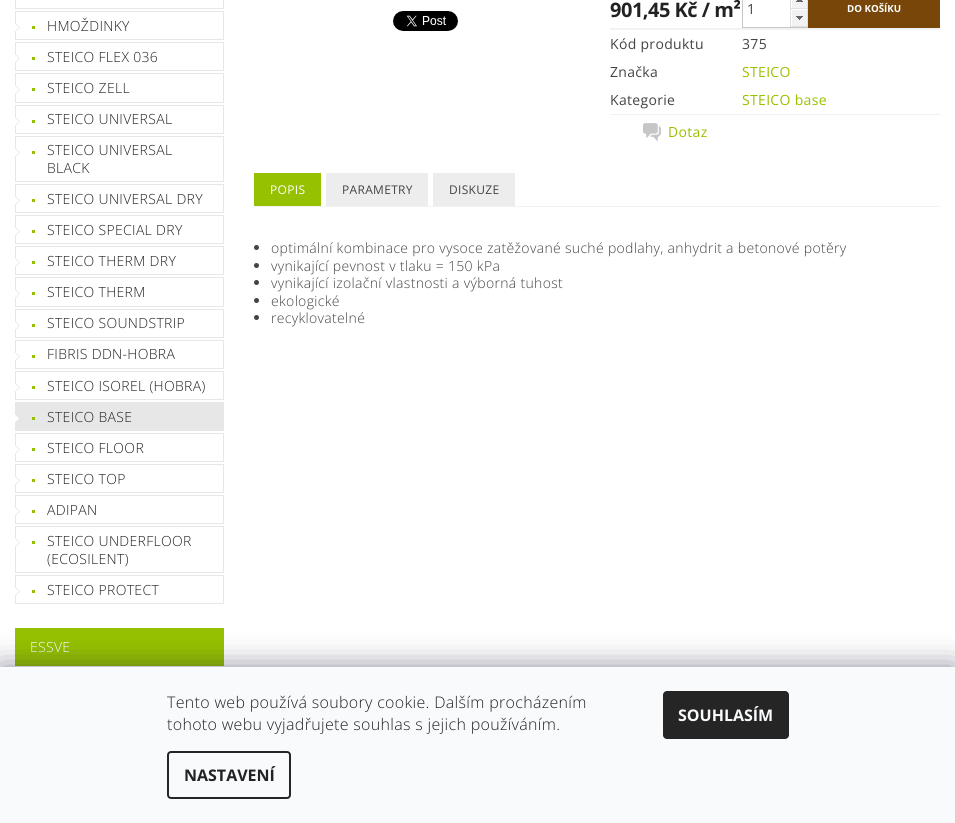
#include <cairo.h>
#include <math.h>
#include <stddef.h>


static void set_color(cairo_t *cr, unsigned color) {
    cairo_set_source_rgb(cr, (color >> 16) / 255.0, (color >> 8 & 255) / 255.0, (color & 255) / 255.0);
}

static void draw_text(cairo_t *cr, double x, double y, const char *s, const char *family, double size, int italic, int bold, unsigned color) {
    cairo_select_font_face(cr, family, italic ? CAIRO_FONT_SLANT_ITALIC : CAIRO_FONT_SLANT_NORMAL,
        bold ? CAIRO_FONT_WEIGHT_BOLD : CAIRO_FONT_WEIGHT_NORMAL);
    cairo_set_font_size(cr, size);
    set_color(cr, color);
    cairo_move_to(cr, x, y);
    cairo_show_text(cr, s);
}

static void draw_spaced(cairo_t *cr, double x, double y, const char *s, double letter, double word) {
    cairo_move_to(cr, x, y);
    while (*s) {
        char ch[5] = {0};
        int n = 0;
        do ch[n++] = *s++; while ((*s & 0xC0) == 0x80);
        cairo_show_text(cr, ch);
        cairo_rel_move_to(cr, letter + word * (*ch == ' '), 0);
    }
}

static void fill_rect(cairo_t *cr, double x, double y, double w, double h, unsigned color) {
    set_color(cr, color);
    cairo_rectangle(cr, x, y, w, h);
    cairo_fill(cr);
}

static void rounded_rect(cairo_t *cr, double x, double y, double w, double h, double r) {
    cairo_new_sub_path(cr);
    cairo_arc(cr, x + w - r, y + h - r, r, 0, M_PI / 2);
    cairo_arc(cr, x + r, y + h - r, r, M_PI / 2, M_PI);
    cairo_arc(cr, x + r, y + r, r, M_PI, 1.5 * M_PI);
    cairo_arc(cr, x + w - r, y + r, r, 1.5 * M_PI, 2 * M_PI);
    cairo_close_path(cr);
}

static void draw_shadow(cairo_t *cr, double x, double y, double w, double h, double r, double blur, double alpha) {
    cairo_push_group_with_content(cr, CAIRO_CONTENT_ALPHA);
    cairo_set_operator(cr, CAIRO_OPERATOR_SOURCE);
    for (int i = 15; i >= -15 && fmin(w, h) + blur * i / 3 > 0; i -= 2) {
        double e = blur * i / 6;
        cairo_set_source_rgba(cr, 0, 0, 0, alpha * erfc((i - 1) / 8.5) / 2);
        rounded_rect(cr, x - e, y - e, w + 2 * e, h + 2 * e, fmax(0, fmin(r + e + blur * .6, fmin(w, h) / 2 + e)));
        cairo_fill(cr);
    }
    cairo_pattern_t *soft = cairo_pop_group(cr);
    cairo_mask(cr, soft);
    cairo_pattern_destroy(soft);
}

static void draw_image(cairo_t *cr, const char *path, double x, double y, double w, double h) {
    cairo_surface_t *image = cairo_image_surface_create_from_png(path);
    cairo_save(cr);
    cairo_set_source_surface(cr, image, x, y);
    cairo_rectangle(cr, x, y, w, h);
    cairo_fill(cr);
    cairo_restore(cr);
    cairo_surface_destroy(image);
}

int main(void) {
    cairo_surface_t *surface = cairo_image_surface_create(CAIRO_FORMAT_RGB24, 955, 823);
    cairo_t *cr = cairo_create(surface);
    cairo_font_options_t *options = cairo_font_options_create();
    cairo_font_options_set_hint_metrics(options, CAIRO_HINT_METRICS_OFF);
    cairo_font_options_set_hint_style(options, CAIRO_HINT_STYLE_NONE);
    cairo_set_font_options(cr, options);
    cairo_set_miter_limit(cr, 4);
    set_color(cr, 0xFFFFFF);
    cairo_paint(cr);
    cairo_rectangle(cr, 15.5, -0.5, 208, 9);
    set_color(cr, 0xE7E7E7);
    cairo_set_line_width(cr, 1);
    cairo_stroke(cr);
    cairo_rectangle(cr, 15.5, 11.5, 208, 28);
    cairo_stroke(cr);
    draw_image(cr, "assets/img1.png", 15, 24, 5, 7);
    fill_rect(cr, 32, 26, 3, 3, 0x96C100);
    cairo_select_font_face(cr, "Open Sans Light", CAIRO_FONT_SLANT_NORMAL, CAIRO_FONT_WEIGHT_NORMAL);
    cairo_set_font_size(cr, 14);
    set_color(cr, 0x222222);
    draw_spaced(cr, 47, 31, "HMOŽDINKY", 0.32, 0);
    cairo_rectangle(cr, 15.5, 42.5, 208, 28);
    set_color(cr, 0xE7E7E7);
    cairo_stroke(cr);
    draw_image(cr, "assets/img1.png", 15, 55, 5, 7);
    fill_rect(cr, 32, 57, 3, 3, 0x96C100);
    set_color(cr, 0x222222);
    draw_spaced(cr, 47, 62, "STEICO FLEX 036", 0.32, 0);
    cairo_rectangle(cr, 15.5, 73.5, 208, 29);
    set_color(cr, 0xE7E7E7);
    cairo_stroke(cr);
    draw_image(cr, "assets/img2.png", 15, 86, 5, 8);
    fill_rect(cr, 32, 88, 3, 3, 0x96C100);
    set_color(cr, 0x222222);
    draw_spaced(cr, 47, 93, "STEICO ZELL", 0.32, 0);
    cairo_rectangle(cr, 15.5, 105.5, 208, 28);
    set_color(cr, 0xE7E7E7);
    cairo_stroke(cr);
    draw_image(cr, "assets/img1.png", 15, 118, 5, 7);
    fill_rect(cr, 32, 120, 3, 3, 0x96C100);
    set_color(cr, 0x222222);
    draw_spaced(cr, 47, 124, "STEICO UNIVERSAL", 0.32, 0);
    cairo_rectangle(cr, 15.5, 136.5, 208, 45);
    set_color(cr, 0xE7E7E7);
    cairo_stroke(cr);
    draw_image(cr, "assets/img3.png", 15, 149, 5, 7);
    fill_rect(cr, 32, 151, 3, 3, 0x96C100);
    set_color(cr, 0x222222);
    draw_spaced(cr, 47, 155, "STEICO UNIVERSAL", 0.32, 0);
    draw_spaced(cr, 47, 173, "BLACK", 0.32, 0);
    cairo_rectangle(cr, 15.5, 184.5, 208, 28);
    set_color(cr, 0xE7E7E7);
    cairo_stroke(cr);
    draw_image(cr, "assets/img1.png", 15, 197, 5, 7);
    fill_rect(cr, 32, 199, 3, 3, 0x96C100);
    set_color(cr, 0x222222);
    draw_spaced(cr, 47, 204, "STEICO UNIVERSAL DRY", 0.32, 0);
    cairo_rectangle(cr, 15.5, 215.5, 208, 28);
    set_color(cr, 0xE7E7E7);
    cairo_stroke(cr);
    draw_image(cr, "assets/img1.png", 15, 228, 5, 7);
    fill_rect(cr, 32, 230, 3, 3, 0x96C100);
    set_color(cr, 0x222222);
    draw_spaced(cr, 47, 235, "STEICO SPECIAL DRY", 0.32, 0);
    cairo_rectangle(cr, 15.5, 246.5, 208, 28);
    set_color(cr, 0xE7E7E7);
    cairo_stroke(cr);
    draw_image(cr, "assets/img1.png", 15, 259, 5, 7);
    fill_rect(cr, 32, 261, 3, 3, 0x96C100);
    set_color(cr, 0x222222);
    draw_spaced(cr, 47, 266, "STEICO THERM DRY", 0.32, 0);
    cairo_rectangle(cr, 15.5, 277.5, 208, 29);
    set_color(cr, 0xE7E7E7);
    cairo_stroke(cr);
    draw_image(cr, "assets/img2.png", 15, 290, 5, 8);
    fill_rect(cr, 32, 292, 3, 3, 0x96C100);
    set_color(cr, 0x222222);
    draw_spaced(cr, 47, 297, "STEICO THERM", 0.32, 0);
    cairo_rectangle(cr, 15.5, 309.5, 208, 28);
    set_color(cr, 0xE7E7E7);
    cairo_stroke(cr);
    draw_image(cr, "assets/img1.png", 15, 322, 5, 7);
    fill_rect(cr, 32, 324, 3, 3, 0x96C100);
    set_color(cr, 0x222222);
    draw_spaced(cr, 47, 328, "STEICO SOUNDSTRIP", 0.32, 0);
    cairo_rectangle(cr, 15.5, 340.5, 208, 28);
    set_color(cr, 0xE7E7E7);
    cairo_stroke(cr);
    draw_image(cr, "assets/img1.png", 15, 353, 5, 7);
    fill_rect(cr, 32, 355, 3, 3, 0x96C100);
    set_color(cr, 0x222222);
    draw_spaced(cr, 47, 359, "FIBRIS DDN-HOBRA", 0.32, 0);
    cairo_rectangle(cr, 15.5, 371.5, 208, 28);
    set_color(cr, 0xE7E7E7);
    cairo_stroke(cr);
    draw_image(cr, "assets/img1.png", 15, 384, 5, 7);
    fill_rect(cr, 32, 386, 3, 3, 0x96C100);
    set_color(cr, 0x222222);
    draw_spaced(cr, 47, 391, "STEICO ISOREL (HOBRA)", 0.32, 0);
    cairo_rectangle(cr, 15.5, 402.5, 208, 28);
    set_color(cr, 0xE7E7E7);
    cairo_stroke(cr);
    fill_rect(cr, 16, 403, 207, 27, 0xE7E7E7);
    draw_image(cr, "assets/img4.png", 15, 415, 4, 7);
    fill_rect(cr, 32, 417, 3, 3, 0x96C100);
    set_color(cr, 0x222222);
    draw_spaced(cr, 47, 422, "STEICO BASE", 0.32, 0);
    cairo_rectangle(cr, 15.5, 433.5, 208, 28);
    set_color(cr, 0xE7E7E7);
    cairo_stroke(cr);
    draw_image(cr, "assets/img1.png", 15, 446, 5, 7);
    fill_rect(cr, 32, 448, 3, 3, 0x96C100);
    set_color(cr, 0x222222);
    draw_spaced(cr, 47, 453, "STEICO FLOOR", 0.32, 0);
    cairo_rectangle(cr, 15.5, 464.5, 208, 28);
    set_color(cr, 0xE7E7E7);
    cairo_stroke(cr);
    draw_image(cr, "assets/img1.png", 15, 477, 5, 7);
    fill_rect(cr, 32, 479, 3, 3, 0x96C100);
    set_color(cr, 0x222222);
    draw_spaced(cr, 47, 484, "STEICO TOP", 0.32, 0);
    cairo_rectangle(cr, 15.5, 495.5, 208, 28);
    set_color(cr, 0xE7E7E7);
    cairo_stroke(cr);
    draw_image(cr, "assets/img1.png", 15, 508, 5, 7);
    fill_rect(cr, 32, 510, 3, 3, 0x96C100);
    set_color(cr, 0x222222);
    draw_spaced(cr, 47, 515, "ADIPAN", 0.32, 0);
    cairo_rectangle(cr, 15.5, 526.5, 208, 46);
    set_color(cr, 0xE7E7E7);
    cairo_stroke(cr);
    draw_image(cr, "assets/img5.png", 15, 539, 5, 7);
    fill_rect(cr, 32, 541, 3, 3, 0x96C100);
    set_color(cr, 0x222222);
    draw_spaced(cr, 47, 546, "STEICO UNDERFLOOR", 0.32, 0);
    draw_spaced(cr, 47, 564, "(ECOSILENT)", 0.32, 0);
    cairo_rectangle(cr, 15.5, 575.5, 208, 28);
    set_color(cr, 0xE7E7E7);
    cairo_stroke(cr);
    draw_image(cr, "assets/img1.png", 15, 588, 5, 7);
    fill_rect(cr, 32, 590, 3, 3, 0x96C100);
    set_color(cr, 0x222222);
    draw_spaced(cr, 47, 595, "STEICO PROTECT", 0.32, 0);
    fill_rect(cr, 15, 628, 209, 38, 0x96C100);
    set_color(cr, 0xFFFFFF);
    draw_spaced(cr, 30, 652, "ESSVE", 0.32, 0);
    draw_image(cr, "assets/img6.png", 393, 11, 65, 20);
    fill_rect(cr, 610, 28, 331, 2, 0xF2F2F2);
    cairo_select_font_face(cr, "Open Sans", CAIRO_FONT_SLANT_NORMAL, CAIRO_FONT_WEIGHT_BOLD);
    cairo_set_font_size(cr, 20);
    set_color(cr, 0x222222);
    draw_spaced(cr, 610, 17, "901,45 Kč / m²", -0.5, 0);
    cairo_rectangle(cr, 742.5, -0.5, 65, 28);
    set_color(cr, 0xC6C6C6);
    cairo_stroke(cr);
    draw_text(cr, 747, 14, "1", "Open Sans", 14, 0, 0, 0x444444);
    draw_image(cr, "assets/img7.png", 790, 0, 18, 8);
    draw_image(cr, "assets/img8.png", 790, 8, 18, 19);
    fill_rect(cr, 808, 0, 132, 28, 0x774608);
    draw_text(cr, 847, 12, "DO KOŠÍKU", "Open Sans", 9.75, 0, 1, 0xFFFFFF);
    cairo_select_font_face(cr, "Open Sans", CAIRO_FONT_SLANT_NORMAL, CAIRO_FONT_WEIGHT_NORMAL);
    cairo_set_font_size(cr, 14);
    set_color(cr, 0x444444);
    draw_spaced(cr, 610, 49, "Kód produktu", 0.32, 0);
    draw_spaced(cr, 742, 49, "375", 0.32, 0);
    draw_spaced(cr, 610, 77, "Značka", 0.32, 0);
    set_color(cr, 0x96C100);
    draw_spaced(cr, 742, 77, "STEICO", 0.32, 0);
    fill_rect(cr, 610, 114, 331, 1, 0xF2F2F2);
    set_color(cr, 0x444444);
    draw_spaced(cr, 610, 105, "Kategorie", 0.32, 0);
    set_color(cr, 0x96C100);
    draw_spaced(cr, 742, 105, "STEICO base", 0.32, 0);
    draw_image(cr, "assets/img9.png", 643, 123, 18, 19);
    draw_spaced(cr, 668, 137, "Dotaz", 0.32, 0);
    fill_rect(cr, 254, 206, 686, 1, 0xF2F2F2);
    fill_rect(cr, 254, 173, 67, 33, 0x96C100);
    cairo_set_font_size(cr, 12);
    set_color(cr, 0xFFFFFF);
    draw_spaced(cr, 270, 194, "POPIS", 0.32, 0);
    fill_rect(cr, 326, 173, 102, 33, 0xEDEDED);
    set_color(cr, 0x444444);
    draw_spaced(cr, 342, 194, "PARAMETRY", 0.32, 0);
    fill_rect(cr, 433, 173, 82, 33, 0xEDEDED);
    set_color(cr, 0x444444);
    draw_spaced(cr, 449, 194, "DISKUZE", 0.32, 0);
    cairo_new_path(cr);
    cairo_arc(cr, 256.5, 247.5, 2.5, 0, 2 * M_PI);
    cairo_fill(cr);
    cairo_select_font_face(cr, "Open Sans Light", CAIRO_FONT_SLANT_NORMAL, CAIRO_FONT_WEIGHT_NORMAL);
    cairo_set_font_size(cr, 14);
    draw_spaced(cr, 271, 253, "optimální kombinace pro vysoce zatěžované suché podlahy, anhydrit a betonové potěry", 0.32, 0);
    cairo_new_path(cr);
    cairo_arc(cr, 256.5, 265.5, 2.5, 0, 2 * M_PI);
    cairo_fill(cr);
    draw_spaced(cr, 271, 271, "vynikající pevnost v tlaku = 150 kPa", 0.32, 0);
    cairo_new_path(cr);
    cairo_arc(cr, 256.5, 282.5, 2.5, 0, 2 * M_PI);
    cairo_fill(cr);
    draw_spaced(cr, 271, 288, "vynikající izolační vlastnosti a výborná tuhost", 0.32, 0);
    cairo_new_path(cr);
    cairo_arc(cr, 256.5, 300.5, 2.5, 0, 2 * M_PI);
    cairo_fill(cr);
    draw_spaced(cr, 271, 306, "ekologické", 0.32, 0);
    cairo_new_path(cr);
    cairo_arc(cr, 256.5, 317.5, 2.5, 0, 2 * M_PI);
    cairo_fill(cr);
    draw_spaced(cr, 271, 323, "recyklovatelné", 0.32, 0);
    set_color(cr, 0x1B1939);
    draw_shadow(cr, 0, 667, 955, 156, 0, 15, 0.5);
    fill_rect(cr, 0, 667, 955, 156, 0xF8FAFB);
    cairo_set_font_size(cr, 16);
    set_color(cr, 0x222222);
    draw_spaced(cr, 167, 708, "Tento web používá soubory cookie. Dalším procházením", 0.32, 0);
    draw_spaced(cr, 167, 730, "tohoto webu vyjadřujete souhlas s jejich používáním.", 0.32, 0);
    rounded_rect(cr, 168, 752, 122, 46, 3);
    set_color(cr, 0x252525);
    cairo_set_line_width(cr, 2);
    cairo_stroke(cr);
    draw_text(cr, 184, 781, "NASTAVENÍ", "Open Sans", 16, 0, 1, 0x222222);
    set_color(cr, 0x252525);
    rounded_rect(cr, 663, 691, 126, 48, 4);
    cairo_fill(cr);
    draw_text(cr, 678, 721, "SOUHLASÍM", "Open Sans", 16, 0, 1, 0xF8FAFB);
    cairo_surface_write_to_png(surface, "output.png");
    cairo_font_options_destroy(options);
    cairo_destroy(cr);
    cairo_surface_destroy(surface);
    return 0;
}
